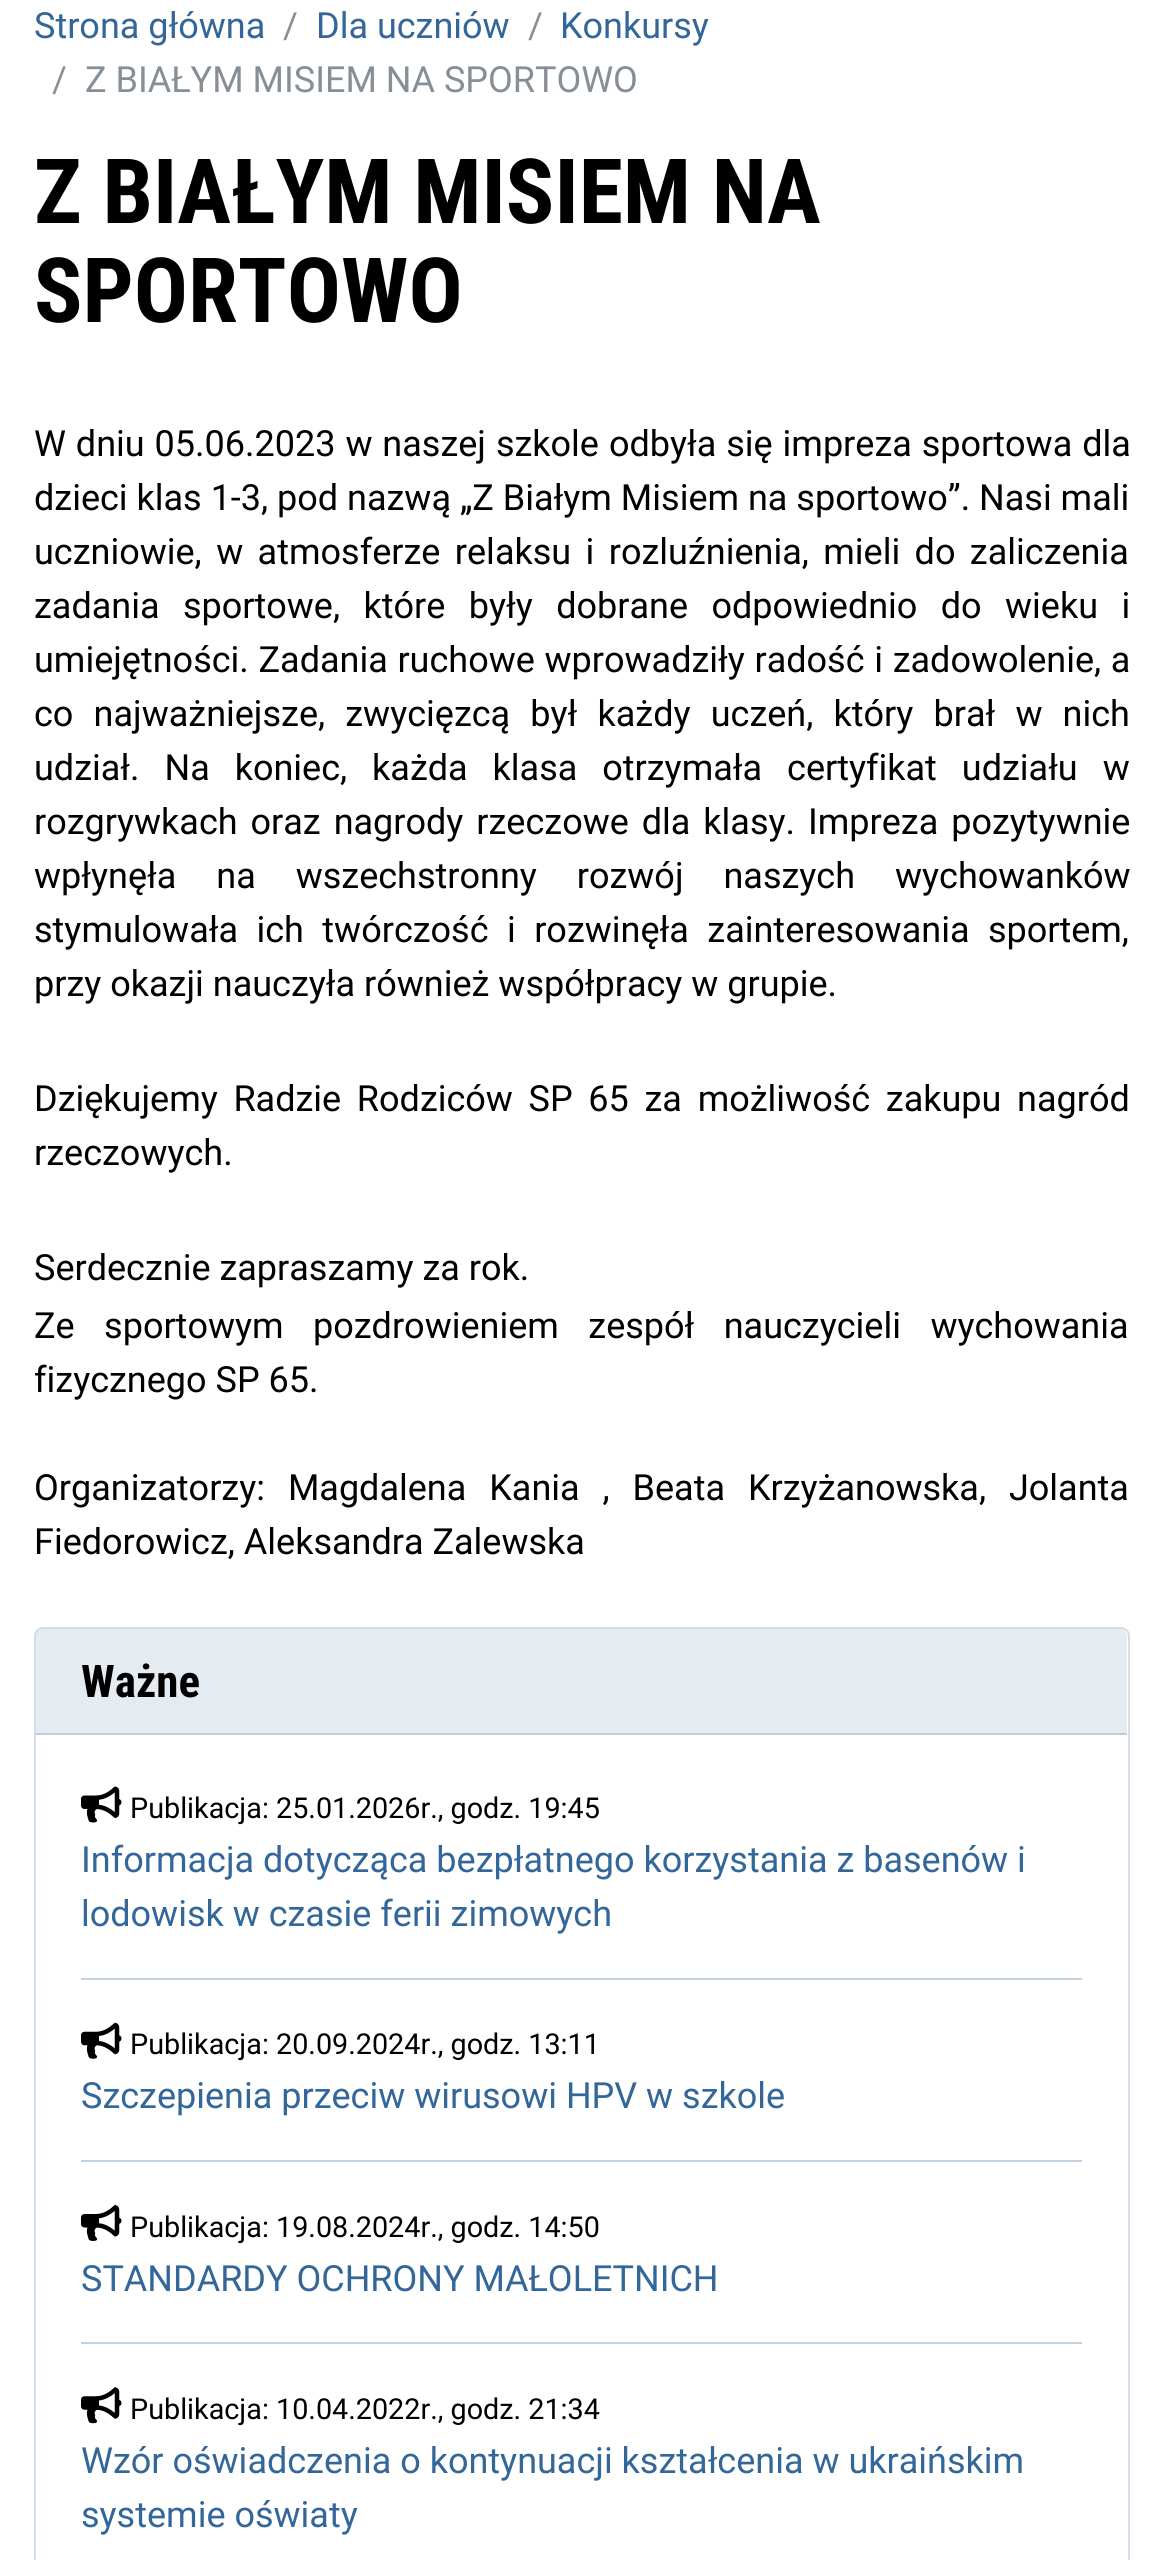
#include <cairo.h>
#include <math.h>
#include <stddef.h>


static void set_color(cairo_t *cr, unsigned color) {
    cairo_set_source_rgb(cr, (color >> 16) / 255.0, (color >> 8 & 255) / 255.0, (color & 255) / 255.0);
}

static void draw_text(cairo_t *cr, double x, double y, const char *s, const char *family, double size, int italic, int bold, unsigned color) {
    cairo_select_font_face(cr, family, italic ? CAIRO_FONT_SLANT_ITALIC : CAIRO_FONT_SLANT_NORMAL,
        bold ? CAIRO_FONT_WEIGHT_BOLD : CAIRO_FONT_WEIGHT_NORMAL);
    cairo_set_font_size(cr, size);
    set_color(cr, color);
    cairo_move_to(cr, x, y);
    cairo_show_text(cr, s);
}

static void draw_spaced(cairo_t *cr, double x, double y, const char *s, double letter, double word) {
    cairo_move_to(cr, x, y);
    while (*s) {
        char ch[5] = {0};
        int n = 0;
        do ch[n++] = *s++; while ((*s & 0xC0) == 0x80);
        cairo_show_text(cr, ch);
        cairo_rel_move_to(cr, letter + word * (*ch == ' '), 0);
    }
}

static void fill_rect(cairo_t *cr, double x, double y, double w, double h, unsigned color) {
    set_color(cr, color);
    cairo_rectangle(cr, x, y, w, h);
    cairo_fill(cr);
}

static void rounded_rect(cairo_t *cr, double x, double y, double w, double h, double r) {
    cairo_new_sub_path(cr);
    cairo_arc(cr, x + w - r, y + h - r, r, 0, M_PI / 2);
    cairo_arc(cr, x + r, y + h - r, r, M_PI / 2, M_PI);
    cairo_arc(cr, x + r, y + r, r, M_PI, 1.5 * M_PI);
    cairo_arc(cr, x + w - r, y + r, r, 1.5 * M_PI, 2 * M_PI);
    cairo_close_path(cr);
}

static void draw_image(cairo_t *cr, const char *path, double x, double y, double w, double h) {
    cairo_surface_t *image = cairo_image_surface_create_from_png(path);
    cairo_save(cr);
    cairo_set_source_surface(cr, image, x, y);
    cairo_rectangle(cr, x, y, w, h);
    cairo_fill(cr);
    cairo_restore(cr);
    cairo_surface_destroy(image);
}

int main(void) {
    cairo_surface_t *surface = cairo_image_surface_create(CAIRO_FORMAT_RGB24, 1162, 2560);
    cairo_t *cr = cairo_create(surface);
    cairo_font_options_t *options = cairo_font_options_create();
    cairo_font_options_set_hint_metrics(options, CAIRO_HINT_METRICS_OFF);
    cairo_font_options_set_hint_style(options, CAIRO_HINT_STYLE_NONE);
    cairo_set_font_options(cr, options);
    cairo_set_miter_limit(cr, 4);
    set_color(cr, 0xFFFFFF);
    cairo_paint(cr);
    draw_text(cr, 34, 38, "Strona główna", "Roboto", 36, 0, 0, 0x336699);
    draw_text(cr, 283, 38, "/", "Roboto", 36, 0, 0, 0x868E96);
    draw_text(cr, 316, 38, "Dla uczniów", "Roboto", 36, 0, 0, 0x336699);
    draw_text(cr, 528, 38, "/", "Roboto", 36, 0, 0, 0x868E96);
    draw_text(cr, 560, 38, "Konkursy", "Roboto", 36, 0, 0, 0x336699);
    draw_text(cr, 52, 92, "/", "Roboto", 36, 0, 0, 0x868E96);
    draw_text(cr, 85, 92, "Z BIAŁYM MISIEM NA SPORTOWO", "Roboto", 36, 0, 0, 0x868E96);
    draw_text(cr, 34, 223, "Z BIAŁYM MISIEM NA", "Roboto Condensed", 90, 0, 1, 0x000000);
    draw_text(cr, 34, 322, "SPORTOWO", "Roboto Condensed", 90, 0, 1, 0x000000);
    cairo_select_font_face(cr, "Roboto", CAIRO_FONT_SLANT_NORMAL, CAIRO_FONT_WEIGHT_NORMAL);
    cairo_set_font_size(cr, 36);
    draw_spaced(cr, 34, 456, "W dniu 05.06.2023 w naszej szkole odbyła się impreza sportowa dla", 0, 1);
    draw_text(cr, 34, 510, "dzieci klas 1-3, pod nazwą „Z Białym Misiem na sportowo”. Nasi mali", "Roboto", 36, 0, 0, 0x000000);
    draw_spaced(cr, 34, 564, "uczniowie, w atmosferze relaksu i rozluźnienia, mieli do zaliczenia", 0, 5.5);
    draw_spaced(cr, 34, 618, "zadania sportowe, które były dobrane odpowiednio do wieku i", 0, 14.5);
    draw_spaced(cr, 34, 672, "umiejętności. Zadania ruchowe wprowadziły radość i zadowolenie, a", 0, 0.75);
    draw_spaced(cr, 34, 726, "co najważniejsze, zwycięzcą był każdy uczeń, który brał w nich", 0, 11.25);
    draw_spaced(cr, 34, 780, "udział. Na koniec, każda klasa otrzymała certyfikat udziału w", 0, 16);
    draw_spaced(cr, 34, 834, "rozgrywkach oraz nagrody rzeczowe dla klasy. Impreza pozytywnie", 0, 4);
    draw_spaced(cr, 34, 888, "wpłynęła na wszechstronny rozwój naszych wychowanków", 0, 31);
    draw_spaced(cr, 34, 942, "stymulowała ich twórczość i rozwinęła zainteresowania sportem,", 0, 9.5);
    draw_text(cr, 34, 996, "przy okazji nauczyła również współpracy w grupie.", "Roboto", 36, 0, 0, 0x000000);
    draw_spaced(cr, 34, 1111, "Dziękujemy Radzie Rodziców SP 65 za możliwość zakupu nagród", 0, 6.75);
    draw_text(cr, 34, 1165, "rzeczowych.", "Roboto", 36, 0, 0, 0x000000);
    draw_text(cr, 34, 1280, "Serdecznie zapraszamy za rok.", "Roboto", 36, 0, 0, 0x000000);
    draw_spaced(cr, 34, 1338, "Ze sportowym pozdrowieniem zespół nauczycieli wychowania", 0, 20.5);
    draw_text(cr, 34, 1392, "fizycznego SP 65.", "Roboto", 36, 0, 0, 0x000000);
    draw_spaced(cr, 34, 1500, "Organizatorzy: Magdalena Kania , Beata Krzyżanowska, Jolanta", 0, 14);
    draw_text(cr, 34, 1554, "Fiedorowicz, Aleksandra Zalewska", "Roboto", 36, 0, 0, 0x000000);
    rounded_rect(cr, 35, 1628, 1094, 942, 8);
    set_color(cr, 0xD1DDE8);
    cairo_stroke(cr);
    cairo_set_source_rgba(cr, 0.2, 0.4, 0.6, 0.13);
    cairo_new_path(cr);
    cairo_move_to(cr, 43, 1629);
    cairo_line_to(cr, 1120, 1629);
    cairo_curve_to(cr, 1124, 1629, 1127, 1632, 1127, 1636);
    cairo_line_to(cr, 1127, 1735);
    cairo_line_to(cr, 36, 1735);
    cairo_line_to(cr, 36, 1636);
    cairo_curve_to(cr, 36, 1632, 39, 1629, 43, 1629);
    cairo_close_path(cr);
    cairo_fill(cr);
    fill_rect(cr, 36, 1733, 1091, 2, 0xBDCDDE);
    draw_text(cr, 81, 1697, "Ważne", "Roboto Condensed", 45, 0, 1, 0x000000);
    draw_image(cr, "assets/img1.png", 81, 1786, 41, 37);
    draw_text(cr, 130, 1818, "Publikacja: 25.01.2026r., godz. 19:45", "Roboto", 28.75, 0, 0, 0x000000);
    draw_text(cr, 81, 1872, "Informacja dotycząca bezpłatnego korzystania z basenów i", "Roboto", 36, 0, 0, 0x336699);
    draw_text(cr, 81, 1926, "lodowisk w czasie ferii zimowych", "Roboto", 36, 0, 0, 0x336699);
    fill_rect(cr, 81, 1978, 1001, 2, 0xC2D1E0);
    draw_image(cr, "assets/img2.png", 81, 2022, 41, 37);
    draw_text(cr, 130, 2054, "Publikacja: 20.09.2024r., godz. 13:11", "Roboto", 28.75, 0, 0, 0x000000);
    draw_text(cr, 81, 2108, "Szczepienia przeciw wirusowi HPV w szkole", "Roboto", 36, 0, 0, 0x336699);
    fill_rect(cr, 81, 2160, 1001, 2, 0xC2D1E0);
    draw_image(cr, "assets/img3.png", 81, 2205, 41, 36);
    draw_text(cr, 130, 2237, "Publikacja: 19.08.2024r., godz. 14:50", "Roboto", 28.75, 0, 0, 0x000000);
    draw_text(cr, 81, 2291, "STANDARDY OCHRONY MAŁOLETNICH", "Roboto", 36, 0, 0, 0x336699);
    fill_rect(cr, 81, 2342, 1001, 2, 0xC2D1E0);
    draw_image(cr, "assets/img4.png", 81, 2387, 41, 37);
    draw_text(cr, 130, 2419, "Publikacja: 10.04.2022r., godz. 21:34", "Roboto", 28.75, 0, 0, 0x000000);
    draw_text(cr, 81, 2473, "Wzór oświadczenia o kontynuacji kształcenia w ukraińskim", "Roboto", 36, 0, 0, 0x336699);
    draw_text(cr, 81, 2527, "systemie oświaty", "Roboto", 36, 0, 0, 0x336699);
    cairo_surface_write_to_png(surface, "output.png");
    cairo_font_options_destroy(options);
    cairo_destroy(cr);
    cairo_surface_destroy(surface);
    return 0;
}
